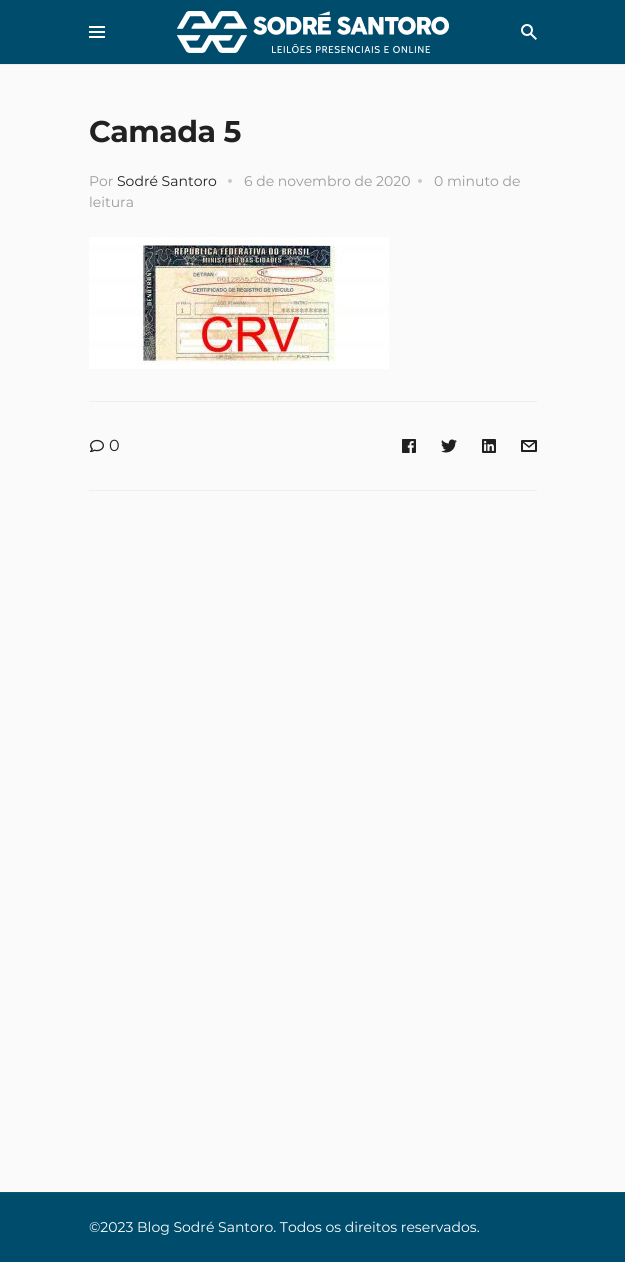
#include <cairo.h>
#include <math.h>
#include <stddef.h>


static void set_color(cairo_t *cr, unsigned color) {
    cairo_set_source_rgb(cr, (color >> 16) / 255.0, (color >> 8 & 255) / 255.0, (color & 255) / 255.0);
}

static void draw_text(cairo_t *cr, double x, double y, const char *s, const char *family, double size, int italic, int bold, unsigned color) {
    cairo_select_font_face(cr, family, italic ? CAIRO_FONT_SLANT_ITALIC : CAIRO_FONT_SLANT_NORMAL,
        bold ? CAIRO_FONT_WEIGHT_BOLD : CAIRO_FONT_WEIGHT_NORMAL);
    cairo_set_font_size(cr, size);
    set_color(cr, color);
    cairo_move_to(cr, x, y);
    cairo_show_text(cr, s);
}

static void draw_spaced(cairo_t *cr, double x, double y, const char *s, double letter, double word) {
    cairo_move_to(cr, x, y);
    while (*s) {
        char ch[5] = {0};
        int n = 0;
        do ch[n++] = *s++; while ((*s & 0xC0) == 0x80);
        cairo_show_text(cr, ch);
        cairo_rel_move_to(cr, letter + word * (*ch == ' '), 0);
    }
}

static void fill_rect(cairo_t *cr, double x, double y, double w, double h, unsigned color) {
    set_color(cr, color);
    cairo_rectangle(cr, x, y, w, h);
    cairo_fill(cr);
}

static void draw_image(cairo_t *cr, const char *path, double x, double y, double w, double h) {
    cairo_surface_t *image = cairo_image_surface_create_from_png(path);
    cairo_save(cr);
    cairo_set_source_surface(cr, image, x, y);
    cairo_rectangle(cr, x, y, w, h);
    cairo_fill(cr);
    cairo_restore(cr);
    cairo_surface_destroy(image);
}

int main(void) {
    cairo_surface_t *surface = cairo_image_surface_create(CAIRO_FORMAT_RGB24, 625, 1262);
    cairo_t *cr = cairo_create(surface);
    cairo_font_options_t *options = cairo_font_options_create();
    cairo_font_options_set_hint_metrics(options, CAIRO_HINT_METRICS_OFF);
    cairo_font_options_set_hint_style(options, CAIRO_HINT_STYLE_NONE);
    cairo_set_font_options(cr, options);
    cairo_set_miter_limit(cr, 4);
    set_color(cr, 0xFAFAFA);
    cairo_paint(cr);
    fill_rect(cr, 0, 0, 625, 64, 0x004C6C);
    draw_image(cr, "assets/img1.png", 89, 26, 16, 12);
    draw_image(cr, "assets/img2.png", 177, 11, 272, 42);
    draw_image(cr, "assets/img3.png", 521, 24, 16, 16);
    fill_rect(cr, 0, 64, 625, 1, 0xEEEEEE);
    cairo_select_font_face(cr, "Montserrat", CAIRO_FONT_SLANT_NORMAL, CAIRO_FONT_WEIGHT_BOLD);
    cairo_set_font_size(cr, 30);
    set_color(cr, 0x212121);
    draw_spaced(cr, 89, 142, "Camada 5", -0.5, 0);
    draw_text(cr, 89, 186, "Por", "Montserrat", 14, 0, 0, 0x9B9B9B);
    draw_text(cr, 117, 186, "Sodré Santoro", "Montserrat", 14, 0, 0, 0x212121);
    set_color(cr, 0xCBCBCB);
    cairo_new_path(cr);
    cairo_arc(cr, 230, 181, 2, 0, 2 * M_PI);
    cairo_fill(cr);
    draw_text(cr, 244, 186, "6 de novembro de 2020", "Montserrat", 14, 0, 0, 0x9B9B9B);
    set_color(cr, 0xCBCBCB);
    cairo_new_path(cr);
    cairo_arc(cr, 420, 181, 2, 0, 2 * M_PI);
    cairo_fill(cr);
    draw_text(cr, 434, 186, "0 minuto de", "Montserrat", 14, 0, 0, 0x9B9B9B);
    draw_text(cr, 89, 207, "leitura", "Montserrat", 14, 0, 0, 0x9B9B9B);
    draw_image(cr, "assets/img4.png", 89, 237, 300, 132);
    fill_rect(cr, 89, 401, 448, 1, 0xEEEEEE);
    draw_image(cr, "assets/img5.png", 90, 439, 14, 14);
    draw_text(cr, 109, 451, "0", "Montserrat", 16, 0, 0, 0x212121);
    draw_image(cr, "assets/img6.png", 402, 439, 14, 14);
    draw_image(cr, "assets/img7.png", 441, 439, 16, 14);
    draw_image(cr, "assets/img8.png", 482, 439, 14, 14);
    draw_image(cr, "assets/img9.png", 521, 440, 16, 12);
    fill_rect(cr, 89, 490, 448, 1, 0xEEEEEE);
    fill_rect(cr, 0, 1193, 625, 69, 0x004C6C);
    fill_rect(cr, 0, 1192, 625, 1, 0x0D5573);
    draw_text(cr, 89, 1232, "©2023 Blog Sodré Santoro. Todos os direitos reservados.", "Montserrat", 14, 0, 0, 0xFFFFFF);
    cairo_surface_write_to_png(surface, "output.png");
    cairo_font_options_destroy(options);
    cairo_destroy(cr);
    cairo_surface_destroy(surface);
    return 0;
}
